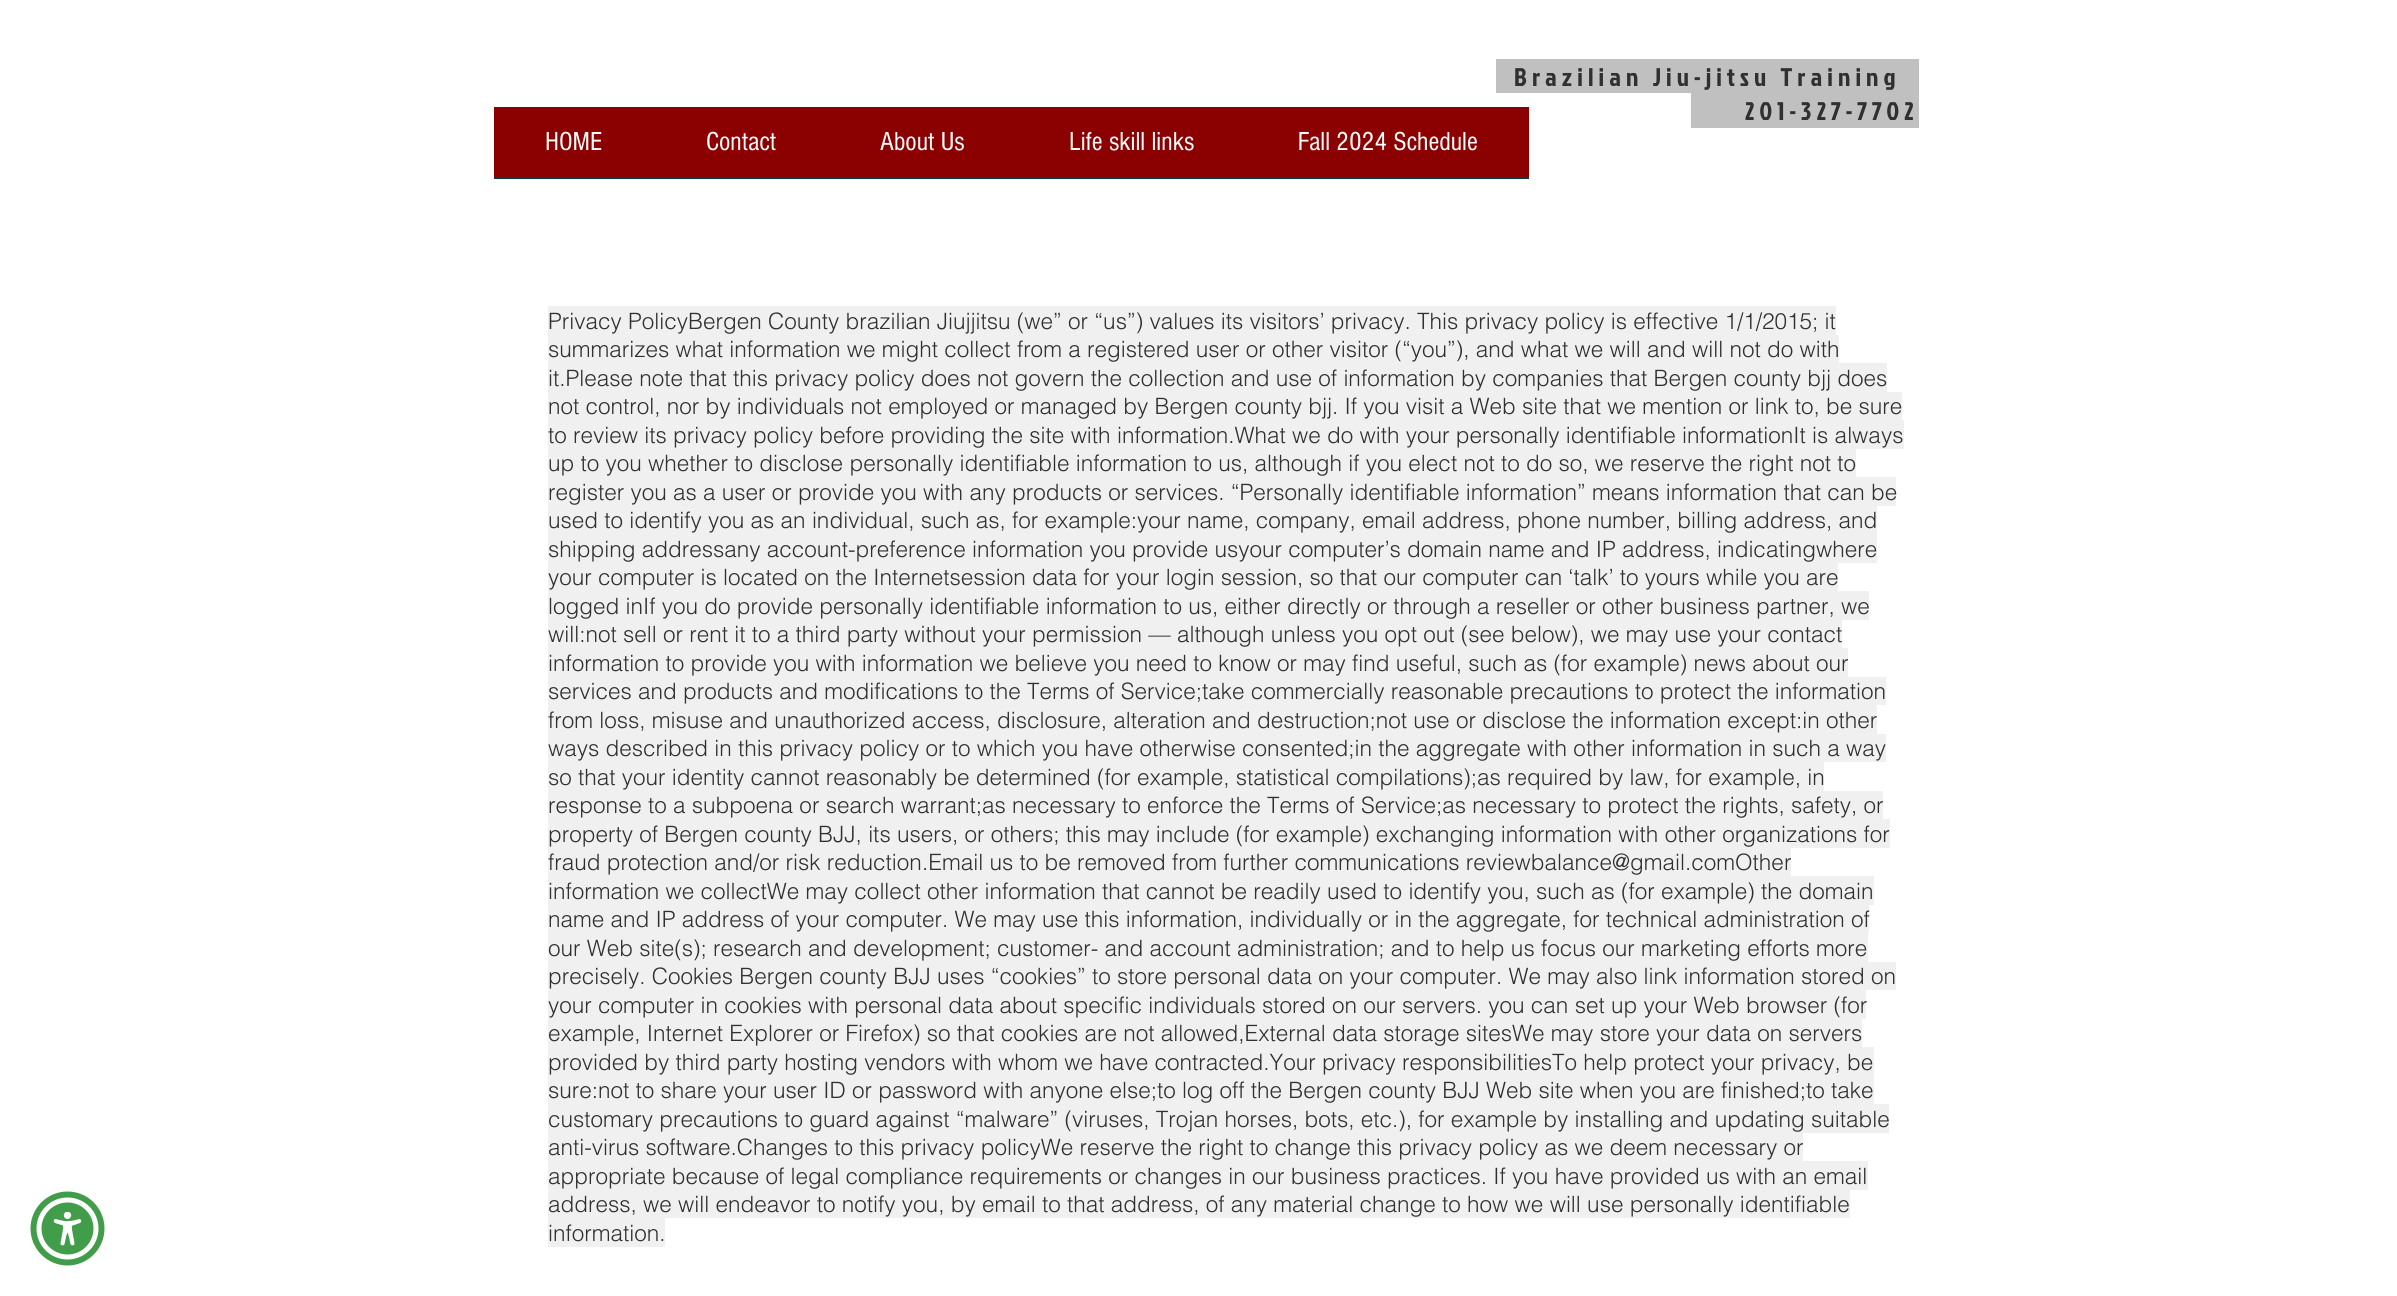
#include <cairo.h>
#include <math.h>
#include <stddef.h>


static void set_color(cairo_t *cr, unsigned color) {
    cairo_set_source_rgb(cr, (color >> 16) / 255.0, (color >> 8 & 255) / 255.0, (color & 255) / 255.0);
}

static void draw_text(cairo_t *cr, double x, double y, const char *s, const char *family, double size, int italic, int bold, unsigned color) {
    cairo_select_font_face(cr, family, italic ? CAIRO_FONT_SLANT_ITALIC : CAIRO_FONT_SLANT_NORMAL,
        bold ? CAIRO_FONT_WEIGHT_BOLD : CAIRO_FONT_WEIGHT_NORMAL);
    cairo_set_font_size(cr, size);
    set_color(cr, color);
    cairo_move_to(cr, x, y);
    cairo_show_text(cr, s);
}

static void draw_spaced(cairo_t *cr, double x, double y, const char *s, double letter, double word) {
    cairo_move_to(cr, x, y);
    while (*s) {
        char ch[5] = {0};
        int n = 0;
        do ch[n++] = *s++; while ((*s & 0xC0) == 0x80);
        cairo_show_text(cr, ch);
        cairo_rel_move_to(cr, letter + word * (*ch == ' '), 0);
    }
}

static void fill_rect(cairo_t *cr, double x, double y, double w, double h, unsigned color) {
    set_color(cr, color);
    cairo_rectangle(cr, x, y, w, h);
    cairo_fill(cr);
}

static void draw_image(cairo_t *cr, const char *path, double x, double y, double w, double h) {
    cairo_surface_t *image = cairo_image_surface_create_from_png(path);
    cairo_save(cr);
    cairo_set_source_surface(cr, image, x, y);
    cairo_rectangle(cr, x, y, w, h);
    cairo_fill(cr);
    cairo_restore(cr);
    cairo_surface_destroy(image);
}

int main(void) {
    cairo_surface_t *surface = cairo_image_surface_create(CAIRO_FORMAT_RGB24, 2397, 1296);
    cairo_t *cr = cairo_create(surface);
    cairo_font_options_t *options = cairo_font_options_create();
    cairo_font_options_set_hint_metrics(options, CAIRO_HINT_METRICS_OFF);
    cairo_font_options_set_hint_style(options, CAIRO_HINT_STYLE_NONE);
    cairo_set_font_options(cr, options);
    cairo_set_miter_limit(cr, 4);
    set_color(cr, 0xFFFFFF);
    cairo_paint(cr);
    set_color(cr, 0x419D4A);
    cairo_arc(cr, 67.5, 1228.5, 37, 0, 2 * M_PI);
    cairo_fill(cr);
    set_color(cr, 0xFFFFFF);
    cairo_arc(cr, 67.5, 1228.5, 31, 0, 2 * M_PI);
    cairo_fill(cr);
    set_color(cr, 0x419D4A);
    cairo_arc(cr, 67.5, 1228.5, 26, 0, 2 * M_PI);
    cairo_fill(cr);
    draw_image(cr, "assets/img1.png", 53, 1212, 29, 34);
    fill_rect(cr, 1496, 59, 423, 34, 0xC0C0C0);
    cairo_select_font_face(cr, "Jockey One", CAIRO_FONT_SLANT_NORMAL, CAIRO_FONT_WEIGHT_NORMAL);
    cairo_set_font_size(cr, 25.5);
    set_color(cr, 0x303030);
    draw_spaced(cr, 1514, 86, "Brazilian Jiu-jitsu Training", 5.1, 0);
    fill_rect(cr, 1691, 93, 228, 35, 0xC0C0C0);
    set_color(cr, 0x303030);
    draw_spaced(cr, 1745, 120, "201-327-7702", 5.1, 0);
    fill_rect(cr, 494, 107, 1035, 70, 0x8B0000);
    fill_rect(cr, 494, 177, 1035, 2, 0x003F44);
    draw_text(cr, 545, 150, "HOME", "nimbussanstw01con", 27, 0, 0, 0xFFFFFF);
    draw_text(cr, 706, 150, "Contact", "nimbussanstw01con", 27, 0, 0, 0xFFFFFF);
    draw_text(cr, 880, 150, "About Us", "nimbussanstw01con", 27, 0, 0, 0xFFFFFF);
    draw_text(cr, 1069, 150, "Life skill links", "nimbussanstw01con", 27, 0, 0, 0xFFFFFF);
    draw_text(cr, 1298, 150, "Fall 2024 Schedule", "nimbussanstw01con", 27, 0, 0, 0xFFFFFF);
    fill_rect(cr, 548, 306, 1288, 29, 0xF0F0F0);
    draw_text(cr, 548, 329, "Privacy PolicyBergen County brazilian Jiujjitsu (we” or “us”) values its visitors’ privacy. This privacy policy is effective 1/1/2015; it", "helvetica Light", 22.5, 0, 0, 0x303030);
    fill_rect(cr, 548, 335, 1291, 28, 0xF0F0F0);
    draw_text(cr, 548, 357, "summarizes what information we might collect from a registered user or other visitor (“you”), and what we will and will not do with", "helvetica Light", 22.5, 0, 0, 0x303030);
    fill_rect(cr, 548, 363, 1339, 29, 0xF0F0F0);
    draw_text(cr, 548, 386, "it.Please note that this privacy policy does not govern the collection and use of information by companies that Bergen county bjj does", "helvetica Light", 22.5, 0, 0, 0x303030);
    fill_rect(cr, 548, 392, 1354, 28, 0xF0F0F0);
    draw_text(cr, 548, 414, "not control, nor by individuals not employed or managed by Bergen county bjj. If you visit a Web site that we mention or link to, be sure", "helvetica Light", 22.5, 0, 0, 0x303030);
    fill_rect(cr, 548, 420, 1356, 29, 0xF0F0F0);
    draw_text(cr, 548, 443, "to review its privacy policy before providing the site with information.What we do with your personally identifiable informationIt is always", "helvetica Light", 22.5, 0, 0, 0x303030);
    fill_rect(cr, 548, 449, 1308, 28, 0xF0F0F0);
    draw_text(cr, 548, 471, "up to you whether to disclose personally identifiable information to us, although if you elect not to do so, we reserve the right not to", "helvetica Light", 22.5, 0, 0, 0x303030);
    fill_rect(cr, 548, 477, 1348, 29, 0xF0F0F0);
    draw_text(cr, 548, 500, "register you as a user or provide you with any products or services. “Personally identifiable information” means information that can be", "helvetica Light", 22.5, 0, 0, 0x303030);
    fill_rect(cr, 548, 506, 1329, 57, 0xF0F0F0);
    draw_text(cr, 548, 528, "used to identify you as an individual, such as, for example:your name, company, email address, phone number, billing address, and", "helvetica Light", 22.5, 0, 0, 0x303030);
    draw_text(cr, 548, 557, "shipping addressany account-preference information you provide usyour computer’s domain name and IP address, indicatingwhere", "helvetica Light", 22.5, 0, 0, 0x303030);
    fill_rect(cr, 548, 563, 1290, 28, 0xF0F0F0);
    draw_text(cr, 548, 585, "your computer is located on the Internetsession data for your login session, so that our computer can ‘talk’ to yours while you are", "helvetica Light", 22.5, 0, 0, 0x303030);
    fill_rect(cr, 548, 591, 1321, 29, 0xF0F0F0);
    draw_text(cr, 548, 614, "logged inIf you do provide personally identifiable information to us, either directly or through a reseller or other business partner, we", "helvetica Light", 22.5, 0, 0, 0x303030);
    fill_rect(cr, 548, 620, 1294, 28, 0xF0F0F0);
    draw_text(cr, 548, 642, "will:not sell or rent it to a third party without your permission — although unless you opt out (see below), we may use your contact", "helvetica Light", 22.5, 0, 0, 0x303030);
    fill_rect(cr, 548, 648, 1300, 29, 0xF0F0F0);
    draw_text(cr, 548, 671, "information to provide you with information we believe you need to know or may find useful, such as (for example) news about our", "helvetica Light", 22.5, 0, 0, 0x303030);
    fill_rect(cr, 548, 677, 1338, 28, 0xF0F0F0);
    draw_text(cr, 548, 699, "services and products and modifications to the Terms of Service;take commercially reasonable precautions to protect the information", "helvetica Light", 22.5, 0, 0, 0x303030);
    fill_rect(cr, 548, 705, 1329, 29, 0xF0F0F0);
    draw_text(cr, 548, 728, "from loss, misuse and unauthorized access, disclosure, alteration and destruction;not use or disclose the information except:in other", "helvetica Light", 22.5, 0, 0, 0x303030);
    fill_rect(cr, 548, 734, 1338, 28, 0xF0F0F0);
    draw_text(cr, 548, 756, "ways described in this privacy policy or to which you have otherwise consented;in the aggregate with other information in such a way", "helvetica Light", 22.5, 0, 0, 0x303030);
    fill_rect(cr, 548, 762, 1276, 29, 0xF0F0F0);
    draw_text(cr, 548, 785, "so that your identity cannot reasonably be determined (for example, statistical compilations);as required by law, for example, in", "helvetica Light", 22.5, 0, 0, 0x303030);
    fill_rect(cr, 548, 791, 1335, 28, 0xF0F0F0);
    draw_text(cr, 548, 813, "response to a subpoena or search warrant;as necessary to enforce the Terms of Service;as necessary to protect the rights, safety, or", "helvetica Light", 22.5, 0, 0, 0x303030);
    fill_rect(cr, 548, 819, 1342, 29, 0xF0F0F0);
    draw_text(cr, 548, 842, "property of Bergen county BJJ, its users, or others; this may include (for example) exchanging information with other organizations for", "helvetica Light", 22.5, 0, 0, 0x303030);
    fill_rect(cr, 548, 848, 1243, 28, 0xF0F0F0);
    draw_text(cr, 548, 870, "fraud protection and/or risk reduction.Email us to be removed from further communications reviewbalance@gmail.comOther", "helvetica Light", 22.5, 0, 0, 0x303030);
    fill_rect(cr, 548, 876, 1326, 29, 0xF0F0F0);
    draw_text(cr, 548, 899, "information we collectWe may collect other information that cannot be readily used to identify you, such as (for example) the domain", "helvetica Light", 22.5, 0, 0, 0x303030);
    fill_rect(cr, 548, 905, 1321, 28, 0xF0F0F0);
    draw_text(cr, 548, 927, "name and IP address of your computer. We may use this information, individually or in the aggregate, for technical administration of", "helvetica Light", 22.5, 0, 0, 0x303030);
    fill_rect(cr, 548, 933, 1320, 29, 0xF0F0F0);
    draw_text(cr, 548, 956, "our Web site(s); research and development; customer- and account administration; and to help us focus our marketing efforts more", "helvetica Light", 22.5, 0, 0, 0x303030);
    fill_rect(cr, 548, 962, 1348, 28, 0xF0F0F0);
    draw_text(cr, 548, 984, "precisely. Cookies Bergen county BJJ uses “cookies” to store personal data on your computer. We may also link information stored on", "helvetica Light", 22.5, 0, 0, 0x303030);
    fill_rect(cr, 548, 990, 1318, 29, 0xF0F0F0);
    draw_text(cr, 548, 1013, "your computer in cookies with personal data about specific individuals stored on our servers. you can set up your Web browser (for", "helvetica Light", 22.5, 0, 0, 0x303030);
    fill_rect(cr, 548, 1019, 1314, 28, 0xF0F0F0);
    draw_text(cr, 548, 1041, "example, Internet Explorer or Firefox) so that cookies are not allowed,External data storage sitesWe may store your data on servers", "helvetica Light", 22.5, 0, 0, 0x303030);
    fill_rect(cr, 548, 1047, 1326, 57, 0xF0F0F0);
    draw_text(cr, 548, 1070, "provided by third party hosting vendors with whom we have contracted.Your privacy responsibilitiesTo help protect your privacy, be", "helvetica Light", 22.5, 0, 0, 0x303030);
    draw_text(cr, 548, 1098, "sure:not to share your user ID or password with anyone else;to log off the Bergen county BJJ Web site when you are finished;to take", "helvetica Light", 22.5, 0, 0, 0x303030);
    fill_rect(cr, 548, 1104, 1341, 29, 0xF0F0F0);
    draw_text(cr, 548, 1127, "customary precautions to guard against “malware” (viruses, Trojan horses, bots, etc.), for example by installing and updating suitable", "helvetica Light", 22.5, 0, 0, 0x303030);
    fill_rect(cr, 548, 1133, 1255, 28, 0xF0F0F0);
    draw_text(cr, 548, 1155, "anti-virus software.Changes to this privacy policyWe reserve the right to change this privacy policy as we deem necessary or", "helvetica Light", 22.5, 0, 0, 0x303030);
    fill_rect(cr, 548, 1161, 1320, 29, 0xF0F0F0);
    draw_text(cr, 548, 1184, "appropriate because of legal compliance requirements or changes in our business practices. If you have provided us with an email", "helvetica Light", 22.5, 0, 0, 0x303030);
    fill_rect(cr, 548, 1190, 1302, 28, 0xF0F0F0);
    draw_text(cr, 548, 1212, "address, we will endeavor to notify you, by email to that address, of any material change to how we will use personally identifiable", "helvetica Light", 22.5, 0, 0, 0x303030);
    fill_rect(cr, 548, 1218, 117, 29, 0xF0F0F0);
    draw_text(cr, 548, 1241, "information.", "helvetica Light", 22.5, 0, 0, 0x303030);
    cairo_surface_write_to_png(surface, "output.png");
    cairo_font_options_destroy(options);
    cairo_destroy(cr);
    cairo_surface_destroy(surface);
    return 0;
}
